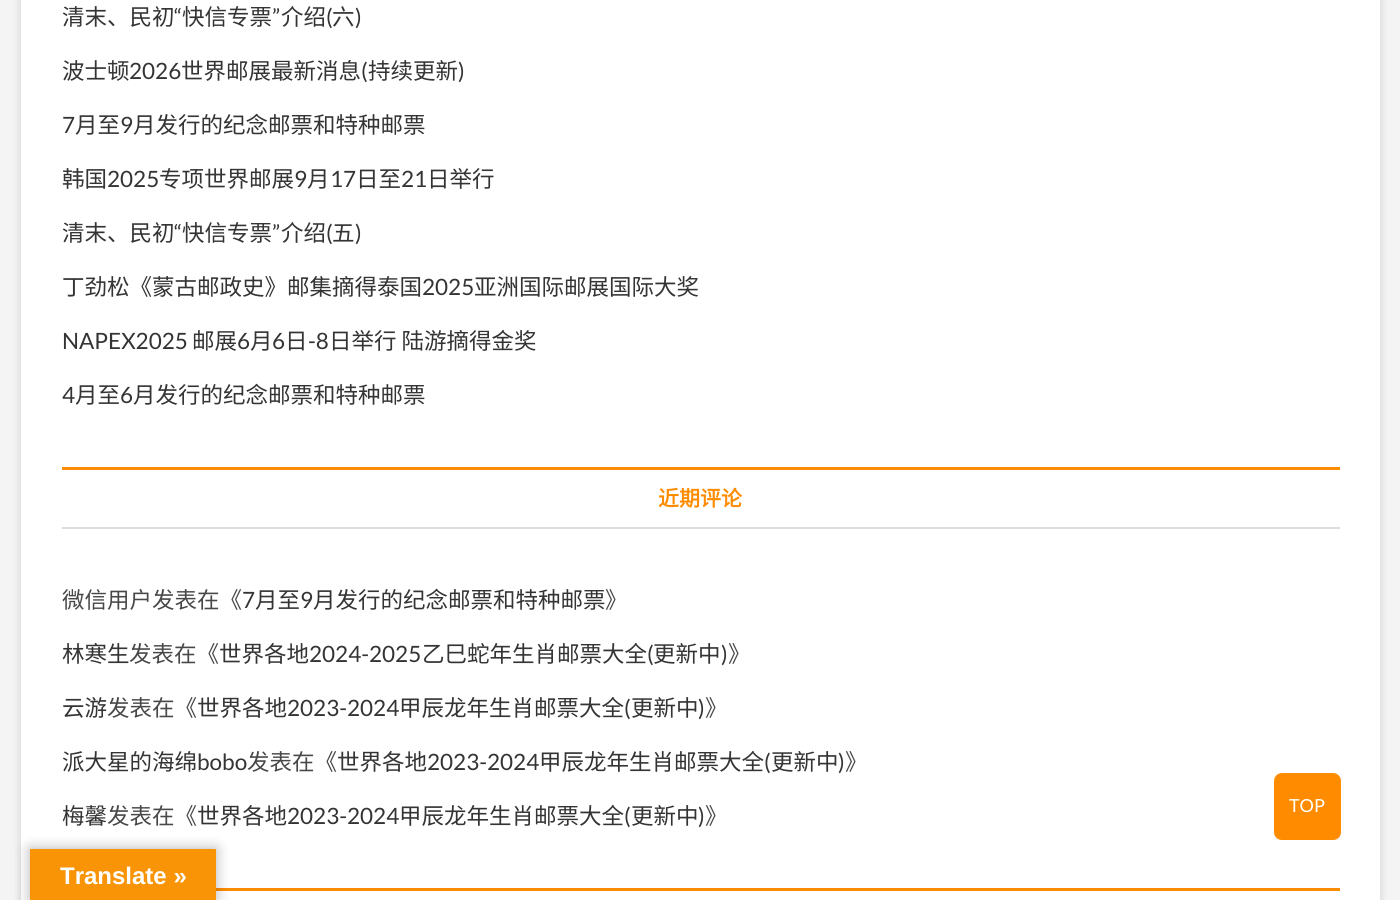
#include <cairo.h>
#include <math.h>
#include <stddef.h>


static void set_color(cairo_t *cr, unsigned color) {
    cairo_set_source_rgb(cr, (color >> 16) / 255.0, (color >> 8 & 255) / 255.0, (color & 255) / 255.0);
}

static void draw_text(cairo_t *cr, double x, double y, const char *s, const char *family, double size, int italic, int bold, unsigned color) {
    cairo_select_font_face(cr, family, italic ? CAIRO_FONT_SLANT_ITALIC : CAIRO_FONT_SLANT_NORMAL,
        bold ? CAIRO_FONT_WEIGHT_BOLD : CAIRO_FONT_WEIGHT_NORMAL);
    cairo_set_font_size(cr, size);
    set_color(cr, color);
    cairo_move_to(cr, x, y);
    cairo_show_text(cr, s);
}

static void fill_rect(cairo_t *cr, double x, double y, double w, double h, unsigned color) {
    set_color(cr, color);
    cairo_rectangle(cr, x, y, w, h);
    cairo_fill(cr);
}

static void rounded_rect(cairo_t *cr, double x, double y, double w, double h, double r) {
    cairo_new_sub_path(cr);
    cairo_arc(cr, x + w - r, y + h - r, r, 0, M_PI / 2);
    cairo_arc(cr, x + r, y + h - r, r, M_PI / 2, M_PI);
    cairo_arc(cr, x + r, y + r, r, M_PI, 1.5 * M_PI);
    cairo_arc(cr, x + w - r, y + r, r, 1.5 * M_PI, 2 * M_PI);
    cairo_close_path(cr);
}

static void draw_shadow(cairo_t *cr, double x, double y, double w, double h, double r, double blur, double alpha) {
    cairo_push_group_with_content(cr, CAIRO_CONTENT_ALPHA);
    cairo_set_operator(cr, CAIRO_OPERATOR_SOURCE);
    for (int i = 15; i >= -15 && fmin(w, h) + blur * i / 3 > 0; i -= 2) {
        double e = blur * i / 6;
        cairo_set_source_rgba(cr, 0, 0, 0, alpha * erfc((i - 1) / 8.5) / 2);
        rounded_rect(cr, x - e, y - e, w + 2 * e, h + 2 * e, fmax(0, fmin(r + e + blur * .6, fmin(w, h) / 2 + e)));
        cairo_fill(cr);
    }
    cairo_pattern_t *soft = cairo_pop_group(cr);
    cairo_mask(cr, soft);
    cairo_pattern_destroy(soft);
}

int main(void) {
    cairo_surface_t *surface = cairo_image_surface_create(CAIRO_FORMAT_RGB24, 1400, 900);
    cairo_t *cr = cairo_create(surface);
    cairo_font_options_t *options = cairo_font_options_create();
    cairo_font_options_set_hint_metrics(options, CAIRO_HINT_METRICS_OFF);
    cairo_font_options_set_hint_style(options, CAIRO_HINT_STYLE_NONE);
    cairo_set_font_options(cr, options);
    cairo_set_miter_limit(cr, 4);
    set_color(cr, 0xF4F4F4);
    cairo_paint(cr);
    set_color(cr, 0x000000);
    draw_shadow(cr, 21, -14, 1359, 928, 0, 4.5, 0.15);
    fill_rect(cr, 21, 0, 1359, 900, 0xFFFFFF);
    draw_text(cr, 62, 25, "清末、民初", "Noto Sans CJK SC", 22.5, 0, 0, 0x343434);
    draw_text(cr, 174, 25, "“", "Lato", 22.5, 0, 0, 0x343434);
    draw_text(cr, 182, 25, "快信专票", "Noto Sans CJK SC", 22.5, 0, 0, 0x343434);
    draw_text(cr, 272, 25, "”", "Lato", 22.5, 0, 0, 0x343434);
    draw_text(cr, 281, 25, "介绍", "Noto Sans CJK SC", 22.5, 0, 0, 0x343434);
    draw_text(cr, 326, 25, "(", "Lato", 22.5, 0, 0, 0x343434);
    draw_text(cr, 332, 25, "六", "Noto Sans CJK SC", 22.5, 0, 0, 0x343434);
    draw_text(cr, 355, 25, ")", "Lato", 22.5, 0, 0, 0x343434);
    draw_text(cr, 62, 79, "波士顿", "Noto Sans CJK SC", 22.5, 0, 0, 0x343434);
    draw_text(cr, 129, 79, "2026", "Lato", 22.5, 0, 0, 0x343434);
    draw_text(cr, 181, 79, "世界邮展最新消息", "Noto Sans CJK SC", 22.5, 0, 0, 0x343434);
    draw_text(cr, 361, 79, "(", "Lato", 22.5, 0, 0, 0x343434);
    draw_text(cr, 368, 79, "持续更新", "Noto Sans CJK SC", 22.5, 0, 0, 0x343434);
    draw_text(cr, 458, 79, ")", "Lato", 22.5, 0, 0, 0x343434);
    draw_text(cr, 62, 133, "7", "Lato", 22.5, 0, 0, 0x343434);
    draw_text(cr, 75, 133, "月至", "Noto Sans CJK SC", 22.5, 0, 0, 0x343434);
    draw_text(cr, 120, 133, "9", "Lato", 22.5, 0, 0, 0x343434);
    draw_text(cr, 133, 133, "月发行的纪念邮票和特种邮票", "Noto Sans CJK SC", 22.5, 0, 0, 0x343434);
    draw_text(cr, 62, 187, "韩国", "Noto Sans CJK SC", 22.5, 0, 0, 0x343434);
    draw_text(cr, 107, 187, "2025", "Lato", 22.5, 0, 0, 0x343434);
    draw_text(cr, 159, 187, "专项世界邮展", "Noto Sans CJK SC", 22.5, 0, 0, 0x343434);
    draw_text(cr, 294, 187, "9", "Lato", 22.5, 0, 0, 0x343434);
    draw_text(cr, 307, 187, "月", "Noto Sans CJK SC", 22.5, 0, 0, 0x343434);
    draw_text(cr, 330, 187, "17", "Lato", 22.5, 0, 0, 0x343434);
    draw_text(cr, 356, 187, "日至", "Noto Sans CJK SC", 22.5, 0, 0, 0x343434);
    draw_text(cr, 401, 187, "21", "Lato", 22.5, 0, 0, 0x343434);
    draw_text(cr, 427, 187, "日举行", "Noto Sans CJK SC", 22.5, 0, 0, 0x343434);
    draw_text(cr, 62, 241, "清末、民初", "Noto Sans CJK SC", 22.5, 0, 0, 0x343434);
    draw_text(cr, 174, 241, "“", "Lato", 22.5, 0, 0, 0x343434);
    draw_text(cr, 182, 241, "快信专票", "Noto Sans CJK SC", 22.5, 0, 0, 0x343434);
    draw_text(cr, 272, 241, "”", "Lato", 22.5, 0, 0, 0x343434);
    draw_text(cr, 281, 241, "介绍", "Noto Sans CJK SC", 22.5, 0, 0, 0x343434);
    draw_text(cr, 326, 241, "(", "Lato", 22.5, 0, 0, 0x343434);
    draw_text(cr, 332, 241, "五", "Noto Sans CJK SC", 22.5, 0, 0, 0x343434);
    draw_text(cr, 355, 241, ")", "Lato", 22.5, 0, 0, 0x343434);
    draw_text(cr, 62, 295, "丁劲松《蒙古邮政史》邮集摘得泰国", "Noto Sans CJK SC", 22.5, 0, 0, 0x343434);
    draw_text(cr, 422, 295, "2025", "Lato", 22.5, 0, 0, 0x343434);
    draw_text(cr, 474, 295, "亚洲国际邮展国际大奖", "Noto Sans CJK SC", 22.5, 0, 0, 0x343434);
    draw_text(cr, 62, 349, "NAPEX2025", "Lato", 22.5, 0, 0, 0x343434);
    draw_text(cr, 192, 349, "邮展", "Noto Sans CJK SC", 22.5, 0, 0, 0x343434);
    draw_text(cr, 237, 349, "6", "Lato", 22.5, 0, 0, 0x343434);
    draw_text(cr, 250, 349, "月", "Noto Sans CJK SC", 22.5, 0, 0, 0x343434);
    draw_text(cr, 272, 349, "6", "Lato", 22.5, 0, 0, 0x343434);
    draw_text(cr, 285, 349, "日", "Noto Sans CJK SC", 22.5, 0, 0, 0x343434);
    draw_text(cr, 308, 349, "-8", "Lato", 22.5, 0, 0, 0x343434);
    draw_text(cr, 329, 349, "日举行 陆游摘得金奖", "Noto Sans CJK SC", 22.5, 0, 0, 0x343434);
    draw_text(cr, 62, 403, "4", "Lato", 22.5, 0, 0, 0x343434);
    draw_text(cr, 75, 403, "月至", "Noto Sans CJK SC", 22.5, 0, 0, 0x343434);
    draw_text(cr, 120, 403, "6", "Lato", 22.5, 0, 0, 0x343434);
    draw_text(cr, 133, 403, "月发行的纪念邮票和特种邮票", "Noto Sans CJK SC", 22.5, 0, 0, 0x343434);
    fill_rect(cr, 62, 467, 1278, 3, 0xFF8C00);
    fill_rect(cr, 62, 527, 1278, 2, 0xDDDDDD);
    draw_text(cr, 658, 506, "近期评论", "Noto Sans CJK SC", 21, 0, 1, 0xFF8C00);
    draw_text(cr, 62, 608, "微信用户发表在《", "Noto Sans CJK SC", 22.5, 0, 0, 0x484848);
    draw_text(cr, 242, 608, "7", "Lato", 22.5, 0, 0, 0x343434);
    draw_text(cr, 255, 608, "月至", "Noto Sans CJK SC", 22.5, 0, 0, 0x343434);
    draw_text(cr, 300, 608, "9", "Lato", 22.5, 0, 0, 0x343434);
    draw_text(cr, 313, 608, "月发行的纪念邮票和特种邮票", "Noto Sans CJK SC", 22.5, 0, 0, 0x343434);
    draw_text(cr, 605, 608, "》", "Noto Sans CJK SC", 22.5, 0, 0, 0x484848);
    draw_text(cr, 62, 662, "林寒生", "Noto Sans CJK SC", 22.5, 0, 0, 0x343434);
    draw_text(cr, 129, 662, "发表在《", "Noto Sans CJK SC", 22.5, 0, 0, 0x484848);
    draw_text(cr, 219, 662, "世界各地", "Noto Sans CJK SC", 22.5, 0, 0, 0x343434);
    draw_text(cr, 309, 662, "2024-2025", "Lato", 22.5, 0, 0, 0x343434);
    draw_text(cr, 422, 662, "乙巳蛇年生肖邮票大全", "Noto Sans CJK SC", 22.5, 0, 0, 0x343434);
    draw_text(cr, 647, 662, "(", "Lato", 22.5, 0, 0, 0x343434);
    draw_text(cr, 653, 662, "更新中", "Noto Sans CJK SC", 22.5, 0, 0, 0x343434);
    draw_text(cr, 721, 662, ")", "Lato", 22.5, 0, 0, 0x343434);
    draw_text(cr, 728, 662, "》", "Noto Sans CJK SC", 22.5, 0, 0, 0x484848);
    draw_text(cr, 62, 716, "云游", "Noto Sans CJK SC", 22.5, 0, 0, 0x343434);
    draw_text(cr, 107, 716, "发表在《", "Noto Sans CJK SC", 22.5, 0, 0, 0x484848);
    draw_text(cr, 197, 716, "世界各地", "Noto Sans CJK SC", 22.5, 0, 0, 0x343434);
    draw_text(cr, 287, 716, "2023-2024", "Lato", 22.5, 0, 0, 0x343434);
    draw_text(cr, 399, 716, "甲辰龙年生肖邮票大全", "Noto Sans CJK SC", 22.5, 0, 0, 0x343434);
    draw_text(cr, 624, 716, "(", "Lato", 22.5, 0, 0, 0x343434);
    draw_text(cr, 631, 716, "更新中", "Noto Sans CJK SC", 22.5, 0, 0, 0x343434);
    draw_text(cr, 698, 716, ")", "Lato", 22.5, 0, 0, 0x343434);
    draw_text(cr, 705, 716, "》", "Noto Sans CJK SC", 22.5, 0, 0, 0x484848);
    draw_text(cr, 62, 770, "派大星的海绵", "Noto Sans CJK SC", 22.5, 0, 0, 0x343434);
    draw_text(cr, 197, 770, "bobo", "Lato", 22.5, 0, 0, 0x343434);
    draw_text(cr, 247, 770, "发表在《", "Noto Sans CJK SC", 22.5, 0, 0, 0x484848);
    draw_text(cr, 337, 770, "世界各地", "Noto Sans CJK SC", 22.5, 0, 0, 0x343434);
    draw_text(cr, 427, 770, "2023-2024", "Lato", 22.5, 0, 0, 0x343434);
    draw_text(cr, 539, 770, "甲辰龙年生肖邮票大全", "Noto Sans CJK SC", 22.5, 0, 0, 0x343434);
    draw_text(cr, 764, 770, "(", "Lato", 22.5, 0, 0, 0x343434);
    draw_text(cr, 771, 770, "更新中", "Noto Sans CJK SC", 22.5, 0, 0, 0x343434);
    draw_text(cr, 838, 770, ")", "Lato", 22.5, 0, 0, 0x343434);
    draw_text(cr, 845, 770, "》", "Noto Sans CJK SC", 22.5, 0, 0, 0x484848);
    draw_text(cr, 62, 824, "梅馨", "Noto Sans CJK SC", 22.5, 0, 0, 0x343434);
    draw_text(cr, 107, 824, "发表在《", "Noto Sans CJK SC", 22.5, 0, 0, 0x484848);
    draw_text(cr, 197, 824, "世界各地", "Noto Sans CJK SC", 22.5, 0, 0, 0x343434);
    draw_text(cr, 287, 824, "2023-2024", "Lato", 22.5, 0, 0, 0x343434);
    draw_text(cr, 399, 824, "甲辰龙年生肖邮票大全", "Noto Sans CJK SC", 22.5, 0, 0, 0x343434);
    draw_text(cr, 624, 824, "(", "Lato", 22.5, 0, 0, 0x343434);
    draw_text(cr, 631, 824, "更新中", "Noto Sans CJK SC", 22.5, 0, 0, 0x343434);
    draw_text(cr, 698, 824, ")", "Lato", 22.5, 0, 0, 0x343434);
    draw_text(cr, 705, 824, "》", "Noto Sans CJK SC", 22.5, 0, 0, 0x484848);
    fill_rect(cr, 216, 888, 1124, 3, 0xFF8C00);
    cairo_save(cr);
    cairo_rectangle(cr, 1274, 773, 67, 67);
    cairo_clip(cr);
    set_color(cr, 0x000000);
    draw_shadow(cr, 1274, 776, 67, 67, 8, 2, 0.08);
    cairo_restore(cr);
    rounded_rect(cr, 1274, 773, 67, 67, 8);
    cairo_fill(cr);
    draw_text(cr, 1289, 812, "TOP", "Lato", 18, 0, 0, 0xFFFFFF);
    set_color(cr, 0x000000);
    draw_shadow(cr, 30, 849, 186, 51, 0, 7, 0.3);
    fill_rect(cr, 30, 849, 186, 51, 0xF89406);
    draw_text(cr, 60, 884, "Translate »", "Liberation Sans", 24, 0, 1, 0xFFFFFF);
    cairo_surface_write_to_png(surface, "output.png");
    cairo_font_options_destroy(options);
    cairo_destroy(cr);
    cairo_surface_destroy(surface);
    return 0;
}
